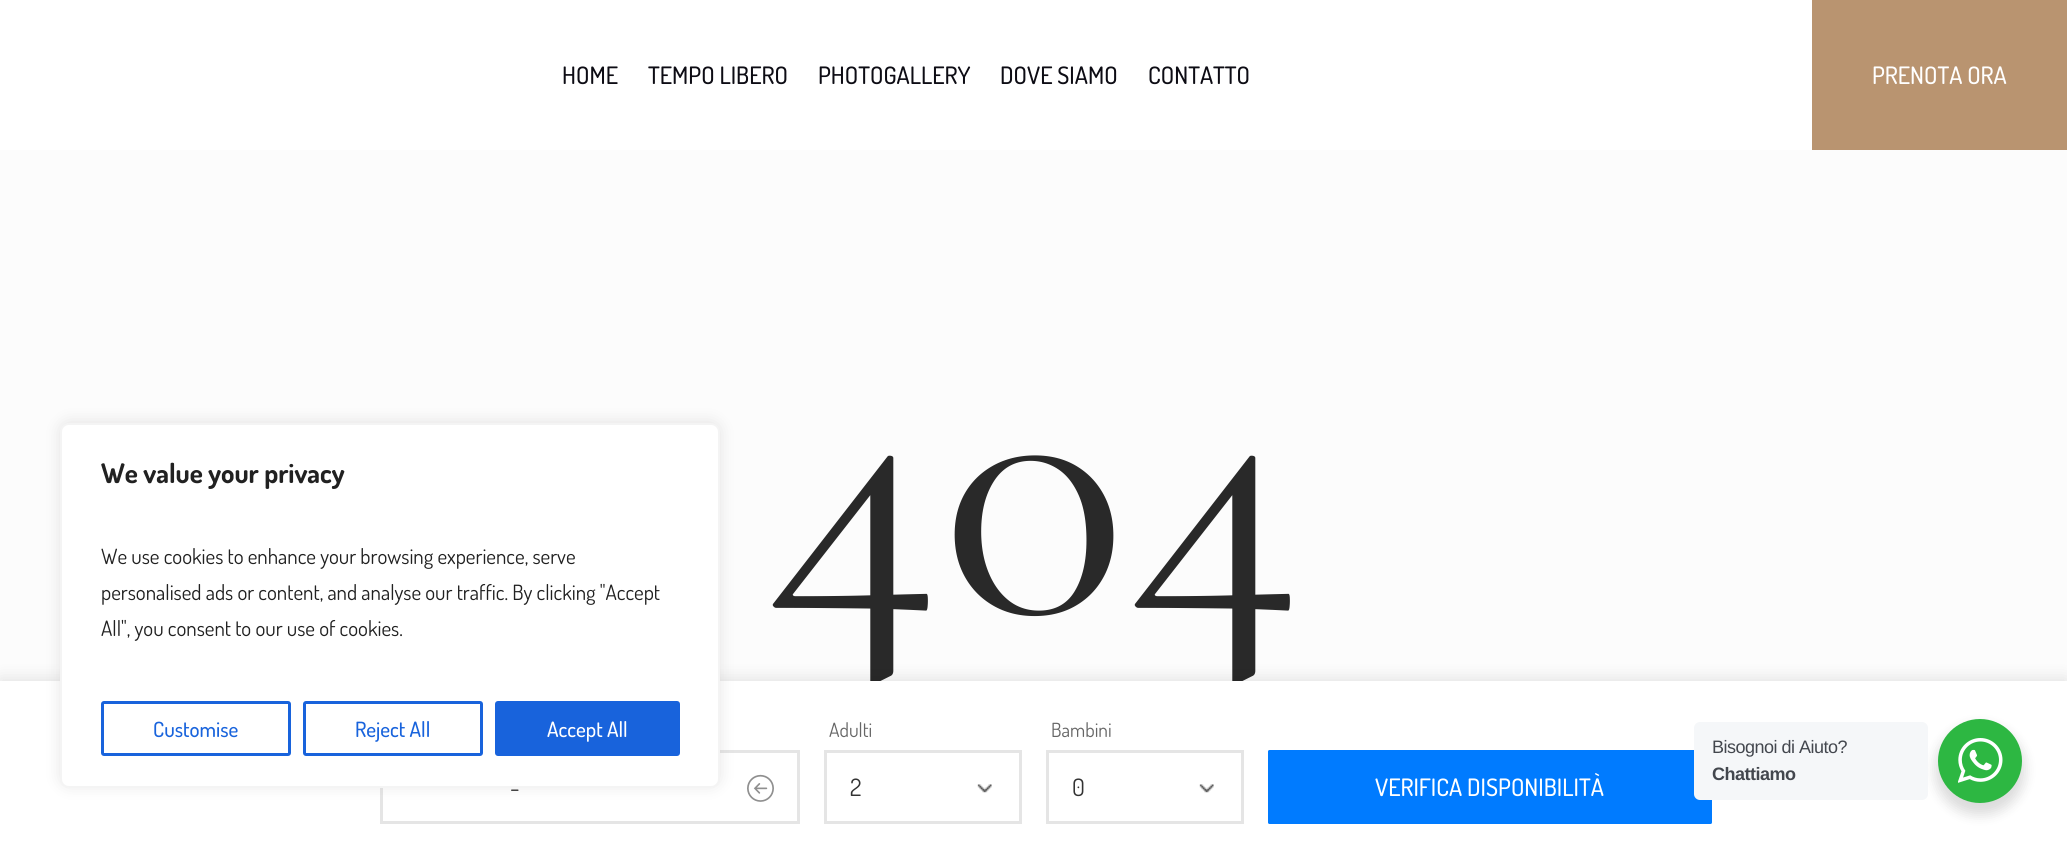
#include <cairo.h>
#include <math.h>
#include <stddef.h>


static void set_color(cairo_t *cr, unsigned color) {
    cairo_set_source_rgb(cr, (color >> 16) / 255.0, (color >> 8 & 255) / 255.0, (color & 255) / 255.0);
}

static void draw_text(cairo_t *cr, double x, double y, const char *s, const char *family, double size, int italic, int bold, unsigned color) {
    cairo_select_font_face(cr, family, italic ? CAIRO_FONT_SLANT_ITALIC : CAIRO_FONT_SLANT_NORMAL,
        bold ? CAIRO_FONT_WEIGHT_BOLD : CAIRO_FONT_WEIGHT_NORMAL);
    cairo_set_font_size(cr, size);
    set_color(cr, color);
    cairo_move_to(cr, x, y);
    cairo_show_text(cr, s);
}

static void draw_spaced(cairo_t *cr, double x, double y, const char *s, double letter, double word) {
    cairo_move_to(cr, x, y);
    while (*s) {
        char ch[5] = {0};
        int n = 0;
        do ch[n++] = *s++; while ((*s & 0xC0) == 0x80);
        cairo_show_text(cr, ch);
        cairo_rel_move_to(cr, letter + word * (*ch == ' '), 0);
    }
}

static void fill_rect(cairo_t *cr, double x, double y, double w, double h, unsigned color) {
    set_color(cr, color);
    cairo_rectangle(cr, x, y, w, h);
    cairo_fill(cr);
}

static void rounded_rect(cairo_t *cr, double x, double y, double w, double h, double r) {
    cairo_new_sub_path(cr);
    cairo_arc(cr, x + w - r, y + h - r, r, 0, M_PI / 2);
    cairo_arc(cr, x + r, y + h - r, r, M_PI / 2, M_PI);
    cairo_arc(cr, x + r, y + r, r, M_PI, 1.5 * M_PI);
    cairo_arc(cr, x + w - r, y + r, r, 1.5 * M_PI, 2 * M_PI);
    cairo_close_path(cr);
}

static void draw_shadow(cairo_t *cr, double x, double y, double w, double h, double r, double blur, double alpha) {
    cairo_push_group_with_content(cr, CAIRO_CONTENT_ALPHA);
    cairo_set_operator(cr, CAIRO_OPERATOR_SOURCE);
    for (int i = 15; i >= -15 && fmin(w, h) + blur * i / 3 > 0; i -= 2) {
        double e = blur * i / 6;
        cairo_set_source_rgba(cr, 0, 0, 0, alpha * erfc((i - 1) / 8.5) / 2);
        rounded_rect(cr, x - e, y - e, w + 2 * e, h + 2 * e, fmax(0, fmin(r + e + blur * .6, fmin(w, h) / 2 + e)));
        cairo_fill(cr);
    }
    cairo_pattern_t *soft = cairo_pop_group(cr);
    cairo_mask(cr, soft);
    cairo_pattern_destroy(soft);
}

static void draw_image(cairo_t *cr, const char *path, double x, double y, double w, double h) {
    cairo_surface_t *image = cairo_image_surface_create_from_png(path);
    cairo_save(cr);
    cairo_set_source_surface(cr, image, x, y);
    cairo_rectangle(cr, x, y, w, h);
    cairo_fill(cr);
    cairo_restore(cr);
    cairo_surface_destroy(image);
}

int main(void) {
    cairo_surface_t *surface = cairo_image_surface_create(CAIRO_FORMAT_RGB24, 2067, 847);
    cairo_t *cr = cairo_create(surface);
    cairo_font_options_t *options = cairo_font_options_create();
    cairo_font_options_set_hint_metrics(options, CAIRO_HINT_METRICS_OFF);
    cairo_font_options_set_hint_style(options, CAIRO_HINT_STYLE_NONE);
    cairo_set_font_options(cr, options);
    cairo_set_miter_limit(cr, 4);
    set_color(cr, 0xFCFCFC);
    cairo_paint(cr);
    draw_text(cr, 765, 611, "404", "Cormorant Light", 390, 0, 0, 0x292929);
    set_color(cr, 0x000000);
    draw_shadow(cr, 0, 678, 2067, 167, 0, 7.5, 0.1);
    fill_rect(cr, 0, 681, 2067, 166, 0xFFFFFF);
    cairo_rectangle(cr, 381.5, 751.5, 417, 71);
    set_color(cr, 0xE5E5E5);
    cairo_set_line_width(cr, 3);
    cairo_stroke(cr);
    set_color(cr, 0xACABAB);
    draw_shadow(cr, 60, 422, 660, 364, 9, 7.5, 0.3);
    set_color(cr, 0xFFFFFF);
    rounded_rect(cr, 61, 424, 658, 363, 8);
    cairo_fill_preserve(cr);
    set_color(cr, 0xF4F4F4);
    cairo_set_line_width(cr, 2);
    cairo_stroke(cr);
    draw_text(cr, 101, 483, "We value your privacy", "Dosis", 27, 0, 1, 0x212121);
    draw_text(cr, 101, 564, "We use cookies to enhance your browsing experience, serve", "Dosis", 21, 0, 0, 0x212121);
    draw_text(cr, 101, 600, "personalised ads or content, and analyse our traffic. By clicking \"Accept", "Dosis", 21, 0, 0, 0x212121);
    draw_text(cr, 101, 636, "All\", you consent to our use of cookies.", "Dosis", 21, 0, 0, 0x212121);
    rounded_rect(cr, 102.5, 702.5, 187, 52, 1.5);
    set_color(cr, 0x1863DC);
    cairo_set_line_width(cr, 3);
    cairo_stroke(cr);
    draw_text(cr, 153, 737, "Customise", "Dosis Medium", 21, 0, 0, 0x1863DC);
    rounded_rect(cr, 304.5, 702.5, 177, 52, 1.5);
    cairo_stroke(cr);
    draw_text(cr, 355, 737, "Reject All", "Dosis Medium", 21, 0, 0, 0x1863DC);
    rounded_rect(cr, 496.5, 702.5, 182, 52, 1.5);
    cairo_fill_preserve(cr);
    cairo_stroke(cr);
    draw_text(cr, 547, 737, "Accept All", "Dosis Medium", 21, 0, 0, 0xFFFFFF);
    fill_rect(cr, 0, 0, 1812, 150, 0xFFFFFF);
    draw_text(cr, 562, 84, "HOME", "Dosis Medium", 24, 0, 0, 0x0D0C14);
    draw_text(cr, 648, 84, "TEMPO LIBERO", "Dosis Medium", 24, 0, 0, 0x0D0C14);
    draw_text(cr, 818, 84, "PHOTOGALLERY", "Dosis Medium", 24, 0, 0, 0x0D0C14);
    draw_text(cr, 1000, 84, "DOVE SIAMO", "Dosis Medium", 24, 0, 0, 0x0D0C14);
    draw_text(cr, 1148, 84, "CONTATTO", "Dosis Medium", 24, 0, 0, 0x0D0C14);
    fill_rect(cr, 1812, 0, 255, 150, 0xB99470);
    draw_text(cr, 1872, 84, "PRENOTA ORA", "Dosis Medium", 24, 0, 0, 0xFFFFFF);
    draw_text(cr, 510, 796, "-", "Dosis", 24, 0, 0, 0x333333);
    draw_image(cr, "assets/img1.png", 747, 774, 27, 28);
    draw_text(cr, 829, 737, "Adulti", "Dosis", 19.5, 0, 0, 0x666666);
    draw_image(cr, "assets/img2.png", 977, 784, 15, 9);
    cairo_rectangle(cr, 825.5, 751.5, 195, 71);
    set_color(cr, 0xE5E5E5);
    cairo_stroke(cr);
    draw_text(cr, 850, 796, "2", "Dosis", 24, 0, 0, 0x333333);
    draw_text(cr, 1051, 737, "Bambini", "Dosis", 19.5, 0, 0, 0x666666);
    draw_image(cr, "assets/img2.png", 1199, 784, 15, 9);
    cairo_rectangle(cr, 1047.5, 751.5, 195, 71);
    set_color(cr, 0xE5E5E5);
    cairo_stroke(cr);
    draw_text(cr, 1072, 796, "0", "Dosis", 24, 0, 0, 0x333333);
    set_color(cr, 0x007BFF);
    rounded_rect(cr, 1268, 750, 444, 74, 1.5);
    cairo_fill(cr);
    draw_text(cr, 1375, 796, "VERIFICA DISPONIBILITÀ", "Dosis Medium", 24, 0, 0, 0xFFFFFF);
    set_color(cr, 0x000000);
    draw_shadow(cr, 1935, 725, 90, 90, 45, 6, 0.14);
    set_color(cr, 0xF5F7F9);
    rounded_rect(cr, 1694, 722, 234, 78, 6);
    cairo_fill(cr);
    cairo_select_font_face(cr, "Liberation Sans", CAIRO_FONT_SLANT_NORMAL, CAIRO_FONT_WEIGHT_NORMAL);
    cairo_set_font_size(cr, 18);
    set_color(cr, 0x43474E);
    draw_spaced(cr, 1712, 753, "Bisognoi di Aiuto?", -0.5, 0);
    cairo_select_font_face(cr, "Liberation Sans", CAIRO_FONT_SLANT_NORMAL, CAIRO_FONT_WEIGHT_BOLD);
    draw_spaced(cr, 1712, 780, "Chattiamo", -0.5, 0);
    set_color(cr, 0x2DB742);
    cairo_new_path(cr);
    cairo_arc(cr, 1980, 761, 42, 0, 2 * M_PI);
    cairo_fill(cr);
    draw_image(cr, "assets/img3.png", 1958, 738, 45, 45);
    cairo_surface_write_to_png(surface, "output.png");
    cairo_font_options_destroy(options);
    cairo_destroy(cr);
    cairo_surface_destroy(surface);
    return 0;
}
